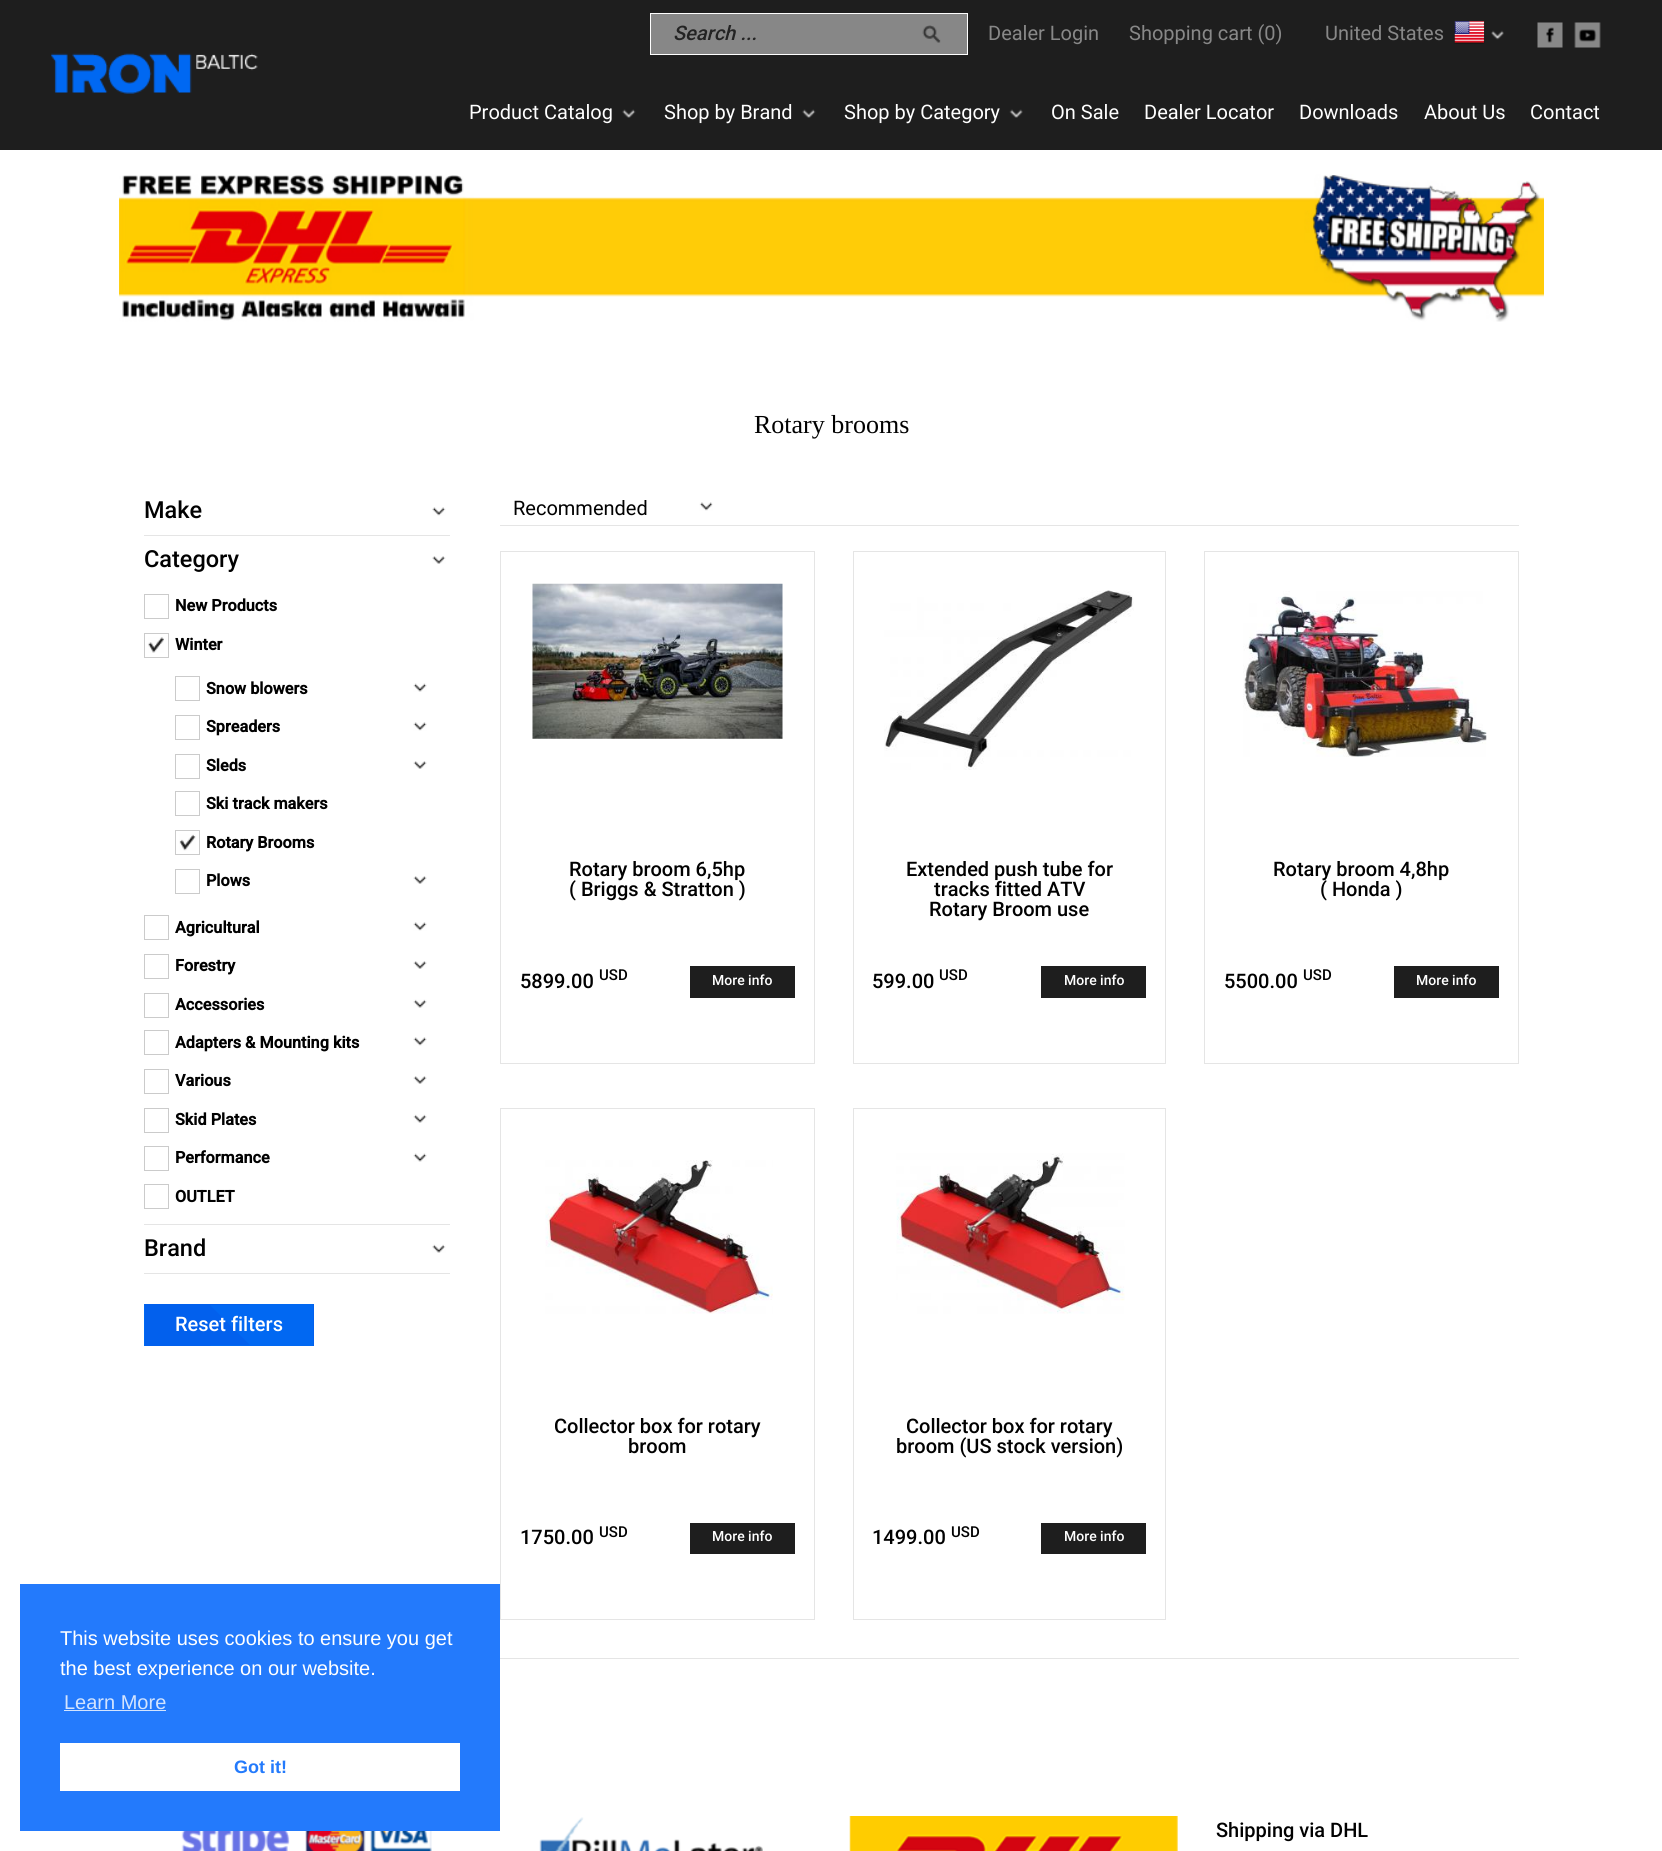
#include <cairo.h>
#include <math.h>
#include <stddef.h>


static void set_color(cairo_t *cr, unsigned color) {
    cairo_set_source_rgb(cr, (color >> 16) / 255.0, (color >> 8 & 255) / 255.0, (color & 255) / 255.0);
}

static void draw_text(cairo_t *cr, double x, double y, const char *s, const char *family, double size, int italic, int bold, unsigned color) {
    cairo_select_font_face(cr, family, italic ? CAIRO_FONT_SLANT_ITALIC : CAIRO_FONT_SLANT_NORMAL,
        bold ? CAIRO_FONT_WEIGHT_BOLD : CAIRO_FONT_WEIGHT_NORMAL);
    cairo_set_font_size(cr, size);
    set_color(cr, color);
    cairo_move_to(cr, x, y);
    cairo_show_text(cr, s);
}

static void fill_rect(cairo_t *cr, double x, double y, double w, double h, unsigned color) {
    set_color(cr, color);
    cairo_rectangle(cr, x, y, w, h);
    cairo_fill(cr);
}

static void draw_image(cairo_t *cr, const char *path, double x, double y, double w, double h) {
    cairo_surface_t *image = cairo_image_surface_create_from_png(path);
    cairo_save(cr);
    cairo_set_source_surface(cr, image, x, y);
    cairo_rectangle(cr, x, y, w, h);
    cairo_fill(cr);
    cairo_restore(cr);
    cairo_surface_destroy(image);
}

int main(void) {
    cairo_surface_t *surface = cairo_image_surface_create(CAIRO_FORMAT_RGB24, 1662, 1851);
    cairo_t *cr = cairo_create(surface);
    cairo_font_options_t *options = cairo_font_options_create();
    cairo_font_options_set_hint_metrics(options, CAIRO_HINT_METRICS_OFF);
    cairo_font_options_set_hint_style(options, CAIRO_HINT_STYLE_NONE);
    cairo_set_font_options(cr, options);
    cairo_set_miter_limit(cr, 4);
    cairo_pattern_t *gradient;
    set_color(cr, 0x1E1E1E);
    cairo_paint(cr);
    draw_image(cr, "assets/img1.png", 51, 53, 207, 41);
    set_color(cr, 0x878787);
    cairo_rectangle(cr, 650.5, 13.5, 317, 41);
    cairo_fill_preserve(cr);
    set_color(cr, 0xFFFFFF);
    cairo_set_line_width(cr, 1);
    cairo_stroke(cr);
    draw_text(cr, 673, 40, "Search ...", "Roboto Medium", 20, 1, 0, 0x232323);
    draw_image(cr, "assets/img2.png", 922, 25, 19, 18);
    draw_text(cr, 988, 40, "Dealer Login", "Roboto", 20, 0, 0, 0x888888);
    draw_text(cr, 1129, 40, "Shopping cart (0)", "Roboto", 20, 0, 0, 0x888888);
    draw_text(cr, 1325, 40, "United States", "Roboto", 20, 0, 0, 0x888888);
    draw_image(cr, "assets/img3.png", 1454, 21, 31, 23);
    draw_image(cr, "assets/img4.png", 1491, 30, 13, 10);
    draw_image(cr, "assets/img5.png", 1537, 22, 26, 26);
    draw_image(cr, "assets/img6.png", 1574, 22, 27, 26);
    draw_text(cr, 469, 119, "Product Catalog", "Roboto", 20, 0, 0, 0xFFFFFF);
    draw_image(cr, "assets/img7.png", 622, 109, 14, 9);
    draw_text(cr, 664, 119, "Shop by Brand", "Roboto", 20, 0, 0, 0xFFFFFF);
    draw_image(cr, "assets/img7.png", 802, 109, 14, 9);
    draw_text(cr, 844, 119, "Shop by Category", "Roboto", 20, 0, 0, 0xFFFFFF);
    draw_image(cr, "assets/img8.png", 1009, 109, 14, 9);
    draw_text(cr, 1051, 119, "On Sale", "Roboto", 20, 0, 0, 0xFFFFFF);
    draw_text(cr, 1144, 119, "Dealer Locator", "Roboto", 20, 0, 0, 0xFFFFFF);
    draw_text(cr, 1299, 119, "Downloads", "Roboto", 20, 0, 0, 0xFFFFFF);
    draw_text(cr, 1424, 119, "About Us", "Roboto", 20, 0, 0, 0xFFFFFF);
    draw_text(cr, 1530, 119, "Contact", "Roboto", 20, 0, 0, 0xFFFFFF);
    fill_rect(cr, 0, 150, 1662, 1701, 0xFFFFFF);
    draw_image(cr, "assets/img9.png", 119, 174, 1425, 148);
    draw_text(cr, 754, 433, "Rotary brooms", "Liberation Serif", 26, 0, 0, 0x010101);
    draw_image(cr, "assets/img10.png", 432, 507, 14, 9);
    draw_text(cr, 144, 518, "Make", "Roboto Medium", 23.5, 0, 0, 0x010101);
    fill_rect(cr, 144, 535, 306, 1, 0xE5E5E5);
    draw_image(cr, "assets/img11.png", 432, 556, 14, 8);
    draw_text(cr, 144, 567, "Category", "Roboto Medium", 23.5, 0, 0, 0x010101);
    fill_rect(cr, 144, 1224, 306, 1, 0xE5E5E5);
    cairo_rectangle(cr, 144.5, 594.5, 24, 24);
    set_color(cr, 0xCBCBCB);
    cairo_stroke(cr);
    draw_text(cr, 175, 611, "New Products", "Roboto", 16.25, 0, 1, 0x010101);
    draw_image(cr, "assets/img12.png", 148, 637, 16, 16);
    cairo_rectangle(cr, 144.5, 633.5, 24, 24);
    set_color(cr, 0xCBCBCB);
    cairo_stroke(cr);
    draw_text(cr, 175, 650, "Winter", "Roboto", 16.25, 0, 1, 0x010101);
    cairo_rectangle(cr, 175.5, 676.5, 24, 24);
    set_color(cr, 0xCBCBCB);
    cairo_stroke(cr);
    draw_text(cr, 206, 694, "Snow blowers", "Roboto", 16.25, 0, 1, 0x010101);
    draw_image(cr, "assets/img13.png", 413, 683, 14, 9);
    cairo_rectangle(cr, 175.5, 715.5, 24, 24);
    set_color(cr, 0xCBCBCB);
    cairo_stroke(cr);
    draw_text(cr, 206, 732, "Spreaders", "Roboto", 16.25, 0, 1, 0x010101);
    draw_image(cr, "assets/img14.png", 413, 722, 14, 9);
    cairo_rectangle(cr, 175.5, 754.5, 24, 24);
    set_color(cr, 0xCBCBCB);
    cairo_stroke(cr);
    draw_text(cr, 206, 771, "Sleds", "Roboto", 16.25, 0, 1, 0x010101);
    draw_image(cr, "assets/img15.png", 413, 761, 14, 8);
    cairo_rectangle(cr, 175.5, 791.5, 24, 24);
    set_color(cr, 0xCBCBCB);
    cairo_stroke(cr);
    draw_text(cr, 206, 809, "Ski track makers", "Roboto", 16.25, 0, 1, 0x010101);
    draw_image(cr, "assets/img16.png", 179, 834, 17, 17);
    cairo_rectangle(cr, 175.5, 830.5, 24, 24);
    set_color(cr, 0xCBCBCB);
    cairo_stroke(cr);
    draw_text(cr, 206, 848, "Rotary Brooms", "Roboto", 16.25, 0, 1, 0x010101);
    cairo_rectangle(cr, 175.5, 869.5, 24, 24);
    set_color(cr, 0xCBCBCB);
    cairo_stroke(cr);
    draw_text(cr, 206, 886, "Plows", "Roboto", 16.25, 0, 1, 0x010101);
    draw_image(cr, "assets/img15.png", 413, 876, 14, 8);
    cairo_rectangle(cr, 144.5, 915.5, 24, 24);
    set_color(cr, 0xCBCBCB);
    cairo_stroke(cr);
    draw_text(cr, 175, 933, "Agricultural", "Roboto", 16.25, 0, 1, 0x010101);
    draw_image(cr, "assets/img14.png", 413, 922, 14, 9);
    cairo_rectangle(cr, 144.5, 954.5, 24, 24);
    set_color(cr, 0xCBCBCB);
    cairo_stroke(cr);
    draw_text(cr, 175, 971, "Forestry", "Roboto", 16.25, 0, 1, 0x010101);
    draw_image(cr, "assets/img15.png", 413, 961, 14, 8);
    cairo_rectangle(cr, 144.5, 993.5, 24, 24);
    set_color(cr, 0xCBCBCB);
    cairo_stroke(cr);
    draw_text(cr, 175, 1010, "Accessories", "Roboto", 16.25, 0, 1, 0x010101);
    draw_image(cr, "assets/img17.png", 413, 999, 14, 9);
    cairo_rectangle(cr, 144.5, 1030.5, 24, 24);
    set_color(cr, 0xCBCBCB);
    cairo_stroke(cr);
    draw_text(cr, 175, 1048, "Adapters & Mounting kits", "Roboto", 16.25, 0, 1, 0x010101);
    draw_image(cr, "assets/img14.png", 413, 1037, 14, 9);
    cairo_rectangle(cr, 144.5, 1069.5, 24, 24);
    set_color(cr, 0xCBCBCB);
    cairo_stroke(cr);
    draw_text(cr, 175, 1086, "Various", "Roboto", 16.25, 0, 1, 0x010101);
    draw_image(cr, "assets/img15.png", 413, 1076, 14, 8);
    cairo_rectangle(cr, 144.5, 1108.5, 24, 24);
    set_color(cr, 0xCBCBCB);
    cairo_stroke(cr);
    draw_text(cr, 175, 1125, "Skid Plates", "Roboto", 16.25, 0, 1, 0x010101);
    draw_image(cr, "assets/img17.png", 413, 1114, 14, 9);
    cairo_rectangle(cr, 144.5, 1146.5, 24, 24);
    set_color(cr, 0xCBCBCB);
    cairo_stroke(cr);
    draw_text(cr, 175, 1163, "Performance", "Roboto", 16.25, 0, 1, 0x010101);
    draw_image(cr, "assets/img13.png", 413, 1153, 14, 9);
    cairo_rectangle(cr, 144.5, 1184.5, 24, 24);
    set_color(cr, 0xCBCBCB);
    cairo_stroke(cr);
    draw_text(cr, 175, 1202, "OUTLET", "Roboto", 16.25, 0, 1, 0x010101);
    draw_image(cr, "assets/img18.png", 432, 1244, 14, 9);
    draw_text(cr, 144, 1256, "Brand", "Roboto Medium", 23.5, 0, 0, 0x010101);
    fill_rect(cr, 144, 1273, 306, 1, 0xE5E5E5);
    gradient = cairo_pattern_create_linear(9, 1337, 113, 1233);
    cairo_pattern_add_color_stop_rgba(gradient, 0, 0.008, 0.376, 0.929, 1);
    cairo_pattern_add_color_stop_rgba(gradient, 0.5, 0.008, 0.376, 0.929, 1);
    cairo_pattern_add_color_stop_rgba(gradient, 0.51, 0.004, 0.408, 0.949, 1);
    cairo_pattern_add_color_stop_rgba(gradient, 1, 0.004, 0.408, 0.949, 1);
    cairo_set_source(cr, gradient);
    cairo_pattern_destroy(gradient);
    cairo_rectangle(cr, 144, 1304, 1, 1);
    cairo_fill(cr);
    gradient = cairo_pattern_create_linear(177, 1337, 281, 1233);
    cairo_pattern_add_color_stop_rgba(gradient, 0, 0.008, 0.376, 0.929, 1);
    cairo_pattern_add_color_stop_rgba(gradient, 0.5, 0.008, 0.376, 0.929, 1);
    cairo_pattern_add_color_stop_rgba(gradient, 0.51, 0.004, 0.408, 0.949, 1);
    cairo_pattern_add_color_stop_rgba(gradient, 1, 0.004, 0.408, 0.949, 1);
    cairo_set_source(cr, gradient);
    cairo_pattern_destroy(gradient);
    cairo_rectangle(cr, 145, 1304, 168, 1);
    cairo_fill(cr);
    gradient = cairo_pattern_create_linear(344, 1337, 448, 1233);
    cairo_pattern_add_color_stop_rgba(gradient, 0, 0.008, 0.376, 0.929, 1);
    cairo_pattern_add_color_stop_rgba(gradient, 0.5, 0.008, 0.376, 0.929, 1);
    cairo_pattern_add_color_stop_rgba(gradient, 0.51, 0.004, 0.408, 0.949, 1);
    cairo_pattern_add_color_stop_rgba(gradient, 1, 0.004, 0.408, 0.949, 1);
    cairo_set_source(cr, gradient);
    cairo_pattern_destroy(gradient);
    cairo_rectangle(cr, 313, 1304, 1, 1);
    cairo_fill(cr);
    gradient = cairo_pattern_create_linear(9, 1377, 113, 1273);
    cairo_pattern_add_color_stop_rgba(gradient, 0, 0.008, 0.376, 0.929, 1);
    cairo_pattern_add_color_stop_rgba(gradient, 0.5, 0.008, 0.376, 0.929, 1);
    cairo_pattern_add_color_stop_rgba(gradient, 0.51, 0.004, 0.408, 0.949, 1);
    cairo_pattern_add_color_stop_rgba(gradient, 1, 0.004, 0.408, 0.949, 1);
    cairo_set_source(cr, gradient);
    cairo_pattern_destroy(gradient);
    cairo_rectangle(cr, 144, 1305, 1, 40);
    cairo_fill(cr);
    gradient = cairo_pattern_create_linear(177, 1377, 281, 1273);
    cairo_pattern_add_color_stop_rgba(gradient, 0, 0.008, 0.376, 0.929, 1);
    cairo_pattern_add_color_stop_rgba(gradient, 0.5, 0.008, 0.376, 0.929, 1);
    cairo_pattern_add_color_stop_rgba(gradient, 0.51, 0.004, 0.408, 0.949, 1);
    cairo_pattern_add_color_stop_rgba(gradient, 1, 0.004, 0.408, 0.949, 1);
    cairo_set_source(cr, gradient);
    cairo_pattern_destroy(gradient);
    cairo_rectangle(cr, 145, 1305, 168, 40);
    cairo_fill(cr);
    gradient = cairo_pattern_create_linear(344, 1377, 448, 1273);
    cairo_pattern_add_color_stop_rgba(gradient, 0, 0.008, 0.376, 0.929, 1);
    cairo_pattern_add_color_stop_rgba(gradient, 0.5, 0.008, 0.376, 0.929, 1);
    cairo_pattern_add_color_stop_rgba(gradient, 0.51, 0.004, 0.408, 0.949, 1);
    cairo_pattern_add_color_stop_rgba(gradient, 1, 0.004, 0.408, 0.949, 1);
    cairo_set_source(cr, gradient);
    cairo_pattern_destroy(gradient);
    cairo_rectangle(cr, 313, 1305, 1, 40);
    cairo_fill(cr);
    gradient = cairo_pattern_create_linear(9, 1417, 113, 1313);
    cairo_pattern_add_color_stop_rgba(gradient, 0, 0.008, 0.376, 0.929, 1);
    cairo_pattern_add_color_stop_rgba(gradient, 0.5, 0.008, 0.376, 0.929, 1);
    cairo_pattern_add_color_stop_rgba(gradient, 0.51, 0.004, 0.408, 0.949, 1);
    cairo_pattern_add_color_stop_rgba(gradient, 1, 0.004, 0.408, 0.949, 1);
    cairo_set_source(cr, gradient);
    cairo_pattern_destroy(gradient);
    cairo_rectangle(cr, 144, 1345, 1, 1);
    cairo_fill(cr);
    gradient = cairo_pattern_create_linear(177, 1417, 281, 1313);
    cairo_pattern_add_color_stop_rgba(gradient, 0, 0.008, 0.376, 0.929, 1);
    cairo_pattern_add_color_stop_rgba(gradient, 0.5, 0.008, 0.376, 0.929, 1);
    cairo_pattern_add_color_stop_rgba(gradient, 0.51, 0.004, 0.408, 0.949, 1);
    cairo_pattern_add_color_stop_rgba(gradient, 1, 0.004, 0.408, 0.949, 1);
    cairo_set_source(cr, gradient);
    cairo_pattern_destroy(gradient);
    cairo_rectangle(cr, 145, 1345, 168, 1);
    cairo_fill(cr);
    gradient = cairo_pattern_create_linear(344, 1417, 448, 1313);
    cairo_pattern_add_color_stop_rgba(gradient, 0, 0.008, 0.376, 0.929, 1);
    cairo_pattern_add_color_stop_rgba(gradient, 0.5, 0.008, 0.376, 0.929, 1);
    cairo_pattern_add_color_stop_rgba(gradient, 0.51, 0.004, 0.408, 0.949, 1);
    cairo_pattern_add_color_stop_rgba(gradient, 1, 0.004, 0.408, 0.949, 1);
    cairo_set_source(cr, gradient);
    cairo_pattern_destroy(gradient);
    cairo_rectangle(cr, 313, 1345, 1, 1);
    cairo_fill(cr);
    draw_text(cr, 175, 1331, "Reset filters", "Roboto Medium", 20, 0, 0, 0xFFFFFF);
    draw_text(cr, 513, 515, "Recommended", "Roboto", 20, 0, 0, 0x010101);
    draw_image(cr, "assets/img19.png", 699, 502, 14, 9);
    fill_rect(cr, 500, 525, 1019, 1, 0xE5E5E5);
    fill_rect(cr, 500, 1658, 1019, 1, 0xE5E5E5);
    cairo_rectangle(cr, 500.5, 551.5, 314, 512);
    cairo_stroke(cr);
    draw_image(cr, "assets/img20.png", 532, 583, 251, 156);
    draw_text(cr, 569, 876, "Rotary broom 6,5hp", "Roboto Medium", 20, 0, 0, 0x010101);
    draw_text(cr, 569, 896, "( Briggs & Stratton )", "Roboto Medium", 20, 0, 0, 0x010101);
    draw_text(cr, 520, 988, "5899.00", "Roboto Medium", 20, 0, 0, 0x010101);
    draw_text(cr, 599, 980, "USD", "Roboto Medium", 15, 0, 0, 0x010101);
    fill_rect(cr, 690, 966, 105, 32, 0x1E1E1E);
    draw_text(cr, 712, 985, "More info", "Roboto Medium", 14, 0, 0, 0xFFFFFF);
    cairo_rectangle(cr, 853.5, 551.5, 312, 512);
    set_color(cr, 0xE5E5E5);
    cairo_stroke(cr);
    draw_image(cr, "assets/img21.png", 884, 590, 250, 180);
    draw_text(cr, 906, 876, "Extended push tube for", "Roboto Medium", 20, 0, 0, 0x010101);
    draw_text(cr, 934, 896, "tracks fitted ATV", "Roboto Medium", 20, 0, 0, 0x010101);
    draw_text(cr, 929, 916, "Rotary Broom use", "Roboto Medium", 20, 0, 0, 0x010101);
    draw_text(cr, 872, 988, "599.00", "Roboto Medium", 20, 0, 0, 0x010101);
    draw_text(cr, 939, 980, "USD", "Roboto Medium", 15, 0, 0, 0x010101);
    fill_rect(cr, 1041, 966, 105, 32, 0x1E1E1E);
    draw_text(cr, 1064, 985, "More info", "Roboto Medium", 14, 0, 0, 0xFFFFFF);
    cairo_rectangle(cr, 1204.5, 551.5, 314, 512);
    set_color(cr, 0xE5E5E5);
    cairo_stroke(cr);
    draw_image(cr, "assets/img22.png", 1243, 591, 244, 166);
    draw_text(cr, 1273, 876, "Rotary broom 4,8hp", "Roboto Medium", 20, 0, 0, 0x010101);
    draw_text(cr, 1320, 896, "( Honda )", "Roboto Medium", 20, 0, 0, 0x010101);
    draw_text(cr, 1224, 988, "5500.00", "Roboto Medium", 20, 0, 0, 0x010101);
    draw_text(cr, 1303, 980, "USD", "Roboto Medium", 15, 0, 0, 0x010101);
    fill_rect(cr, 1394, 966, 105, 32, 0x1E1E1E);
    draw_text(cr, 1416, 985, "More info", "Roboto Medium", 14, 0, 0, 0xFFFFFF);
    cairo_rectangle(cr, 500.5, 1108.5, 314, 511);
    set_color(cr, 0xE5E5E5);
    cairo_stroke(cr);
    draw_image(cr, "assets/img23.png", 545, 1160, 228, 154);
    draw_text(cr, 554, 1433, "Collector box for rotary", "Roboto Medium", 20, 0, 0, 0x010101);
    draw_text(cr, 628, 1453, "broom", "Roboto Medium", 20, 0, 0, 0x010101);
    draw_text(cr, 520, 1544, "1750.00", "Roboto Medium", 20, 0, 0, 0x010101);
    draw_text(cr, 599, 1537, "USD", "Roboto Medium", 15, 0, 0, 0x010101);
    fill_rect(cr, 690, 1523, 105, 31, 0x1E1E1E);
    draw_text(cr, 712, 1541, "More info", "Roboto Medium", 14, 0, 0, 0xFFFFFF);
    cairo_rectangle(cr, 853.5, 1108.5, 312, 511);
    set_color(cr, 0xE5E5E5);
    cairo_stroke(cr);
    draw_image(cr, "assets/img24.png", 896, 1153, 229, 161);
    draw_text(cr, 906, 1433, "Collector box for rotary", "Roboto Medium", 20, 0, 0, 0x010101);
    draw_text(cr, 896, 1453, "broom (US stock version)", "Roboto Medium", 20, 0, 0, 0x010101);
    draw_text(cr, 872, 1544, "1499.00", "Roboto Medium", 20, 0, 0, 0x010101);
    draw_text(cr, 951, 1537, "USD", "Roboto Medium", 15, 0, 0, 0x010101);
    fill_rect(cr, 1041, 1523, 105, 31, 0x1E1E1E);
    draw_text(cr, 1064, 1541, "More info", "Roboto Medium", 14, 0, 0, 0xFFFFFF);
    draw_image(cr, "assets/img25.png", 181, 1831, 251, 20);
    draw_image(cr, "assets/img26.png", 539, 1817, 224, 34);
    draw_image(cr, "assets/img27.png", 849, 1816, 329, 35);
    draw_text(cr, 1216, 1837, "Shipping via DHL", "Roboto Medium", 20, 0, 0, 0x010101);
    fill_rect(cr, 20, 1584, 480, 247, 0x237AFC);
    draw_text(cr, 60, 1645, "This website uses cookies to ensure you get", "Liberation Sans", 20, 0, 0, 0xFFFFFF);
    draw_text(cr, 60, 1675, "the best experience on our website.", "Liberation Sans", 20, 0, 0, 0xFFFFFF);
    draw_text(cr, 64, 1709, "Learn More", "Liberation Sans", 20, 0, 0, 0xD3E4FE);
    fill_rect(cr, 64, 1710, 102, 1, 0xD3E4FE);
    fill_rect(cr, 60, 1743, 400, 48, 0xFFFFFF);
    draw_text(cr, 234, 1773, "Got it!", "Liberation Sans", 18, 0, 1, 0x237AFC);
    cairo_surface_write_to_png(surface, "output.png");
    cairo_font_options_destroy(options);
    cairo_destroy(cr);
    cairo_surface_destroy(surface);
    return 0;
}
